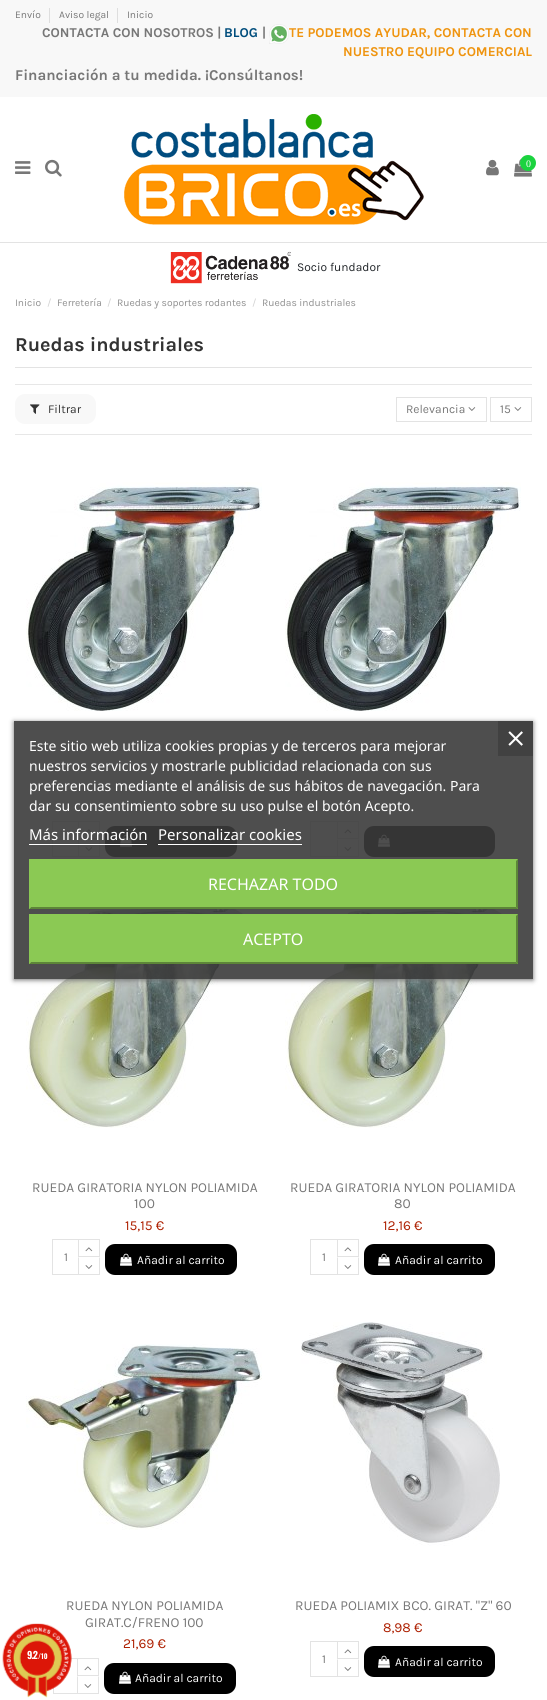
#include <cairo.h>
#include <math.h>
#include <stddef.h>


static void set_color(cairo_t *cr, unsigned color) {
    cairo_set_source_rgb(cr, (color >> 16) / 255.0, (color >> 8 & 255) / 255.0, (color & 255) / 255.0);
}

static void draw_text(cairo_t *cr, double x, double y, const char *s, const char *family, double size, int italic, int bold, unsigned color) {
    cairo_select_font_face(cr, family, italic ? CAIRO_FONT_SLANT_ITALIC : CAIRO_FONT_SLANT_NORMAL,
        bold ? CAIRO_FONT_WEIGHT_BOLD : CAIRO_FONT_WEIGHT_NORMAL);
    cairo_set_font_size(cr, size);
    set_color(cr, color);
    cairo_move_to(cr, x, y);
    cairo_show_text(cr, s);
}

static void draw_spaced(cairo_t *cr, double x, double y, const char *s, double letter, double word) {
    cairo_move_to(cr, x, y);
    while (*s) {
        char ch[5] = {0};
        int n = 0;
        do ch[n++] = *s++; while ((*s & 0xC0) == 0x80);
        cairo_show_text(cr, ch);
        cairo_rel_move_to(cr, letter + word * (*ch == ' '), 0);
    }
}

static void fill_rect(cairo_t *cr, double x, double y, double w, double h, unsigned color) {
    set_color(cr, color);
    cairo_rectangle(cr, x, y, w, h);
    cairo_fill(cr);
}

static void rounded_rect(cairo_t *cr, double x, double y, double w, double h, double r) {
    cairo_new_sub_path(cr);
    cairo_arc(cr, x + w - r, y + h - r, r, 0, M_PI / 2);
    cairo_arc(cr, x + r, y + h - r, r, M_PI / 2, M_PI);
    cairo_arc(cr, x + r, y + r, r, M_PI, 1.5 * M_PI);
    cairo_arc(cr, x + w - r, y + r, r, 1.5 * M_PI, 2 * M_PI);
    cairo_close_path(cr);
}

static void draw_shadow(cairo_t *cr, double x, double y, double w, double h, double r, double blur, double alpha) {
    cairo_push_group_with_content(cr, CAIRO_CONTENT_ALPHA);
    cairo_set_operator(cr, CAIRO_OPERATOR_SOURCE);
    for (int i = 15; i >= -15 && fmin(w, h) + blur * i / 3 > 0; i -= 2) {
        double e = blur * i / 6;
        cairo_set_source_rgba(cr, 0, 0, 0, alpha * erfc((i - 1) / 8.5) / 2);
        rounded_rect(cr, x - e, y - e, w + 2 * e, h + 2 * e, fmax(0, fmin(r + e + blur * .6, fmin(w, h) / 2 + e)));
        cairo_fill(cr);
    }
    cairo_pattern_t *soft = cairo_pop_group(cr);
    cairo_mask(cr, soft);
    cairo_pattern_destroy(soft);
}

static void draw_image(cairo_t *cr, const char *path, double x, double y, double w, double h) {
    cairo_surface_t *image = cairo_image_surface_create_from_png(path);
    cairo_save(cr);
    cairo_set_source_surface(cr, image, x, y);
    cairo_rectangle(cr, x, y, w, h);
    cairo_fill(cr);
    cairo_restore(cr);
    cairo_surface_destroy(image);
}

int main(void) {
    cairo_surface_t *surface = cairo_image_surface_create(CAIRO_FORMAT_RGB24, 547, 1700);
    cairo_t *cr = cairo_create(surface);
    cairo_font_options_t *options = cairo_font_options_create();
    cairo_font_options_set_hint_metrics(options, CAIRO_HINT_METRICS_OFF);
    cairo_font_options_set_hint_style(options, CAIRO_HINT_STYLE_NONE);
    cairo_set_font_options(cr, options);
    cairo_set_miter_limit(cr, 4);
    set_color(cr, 0xFFFFFF);
    cairo_paint(cr);
    fill_rect(cr, 0, 0, 547, 97, 0xF8F8F8);
    draw_text(cr, 15, 18, "Envío", "Karla", 10.25, 0, 0, 0x777777);
    fill_rect(cr, 49, 8, 1, 15, 0xDEDEDE);
    draw_text(cr, 59, 18, "Aviso legal", "Karla", 10.25, 0, 0, 0x777777);
    fill_rect(cr, 117, 8, 1, 15, 0xDEDEDE);
    draw_text(cr, 127, 18, "Inicio", "Karla", 10.25, 0, 0, 0x777777);
    draw_text(cr, 42, 37, "CONTACTA CON NOSOTROS |", "Karla", 13.5, 0, 1, 0x777777);
    draw_text(cr, 224, 37, "BLOG", "Karla", 13.5, 0, 1, 0x004D7C);
    draw_text(cr, 262, 37, "|", "Karla", 13.5, 0, 1, 0x777777);
    draw_image(cr, "assets/img1.png", 269, 24, 20, 20);
    draw_text(cr, 289, 37, "TE PODEMOS AYUDAR, CONTACTA CON", "Karla", 13.5, 0, 1, 0xEF940F);
    draw_text(cr, 343, 56, "NUESTRO EQUIPO COMERCIAL", "Karla", 13.5, 0, 1, 0xEF940F);
    draw_text(cr, 15, 80, "Financiación a tu medida. ¡Consúltanos!", "Karla", 15, 0, 1, 0x777777);
    fill_rect(cr, 0, 242, 547, 1, 0xE3E3E3);
    draw_image(cr, "assets/img2.png", 15, 161, 16, 13);
    draw_image(cr, "assets/img3.png", 45, 159, 17, 18);
    draw_image(cr, "assets/img4.png", 124, 114, 300, 111);
    draw_image(cr, "assets/img5.png", 486, 159, 13, 17);
    draw_image(cr, "assets/img6.png", 514, 158, 18, 19);
    set_color(cr, 0x1BD33F);
    cairo_arc(cr, 528, 163, 8, 0, 2 * M_PI);
    cairo_fill(cr);
    draw_text(cr, 526, 167, "0", "Liberation Serif", 10, 0, 0, 0xFFFFFF);
    draw_image(cr, "assets/img7.png", 170, 251, 121, 33);
    draw_text(cr, 297, 271, "Socio fundador", "Karla", 12, 0, 0, 0x212529);
    draw_text(cr, 15, 306, "Inicio", "Karla", 10.25, 0, 0, 0x8F8F8F);
    draw_text(cr, 47, 306, "/", "Karla", 10.25, 0, 0, 0xD2D2D2);
    draw_text(cr, 57, 306, "Ferretería", "Karla", 10.25, 0, 0, 0x8F8F8F);
    draw_text(cr, 107, 306, "/", "Karla", 10.25, 0, 0, 0xD2D2D2);
    draw_text(cr, 117, 306, "Ruedas y soportes rodantes", "Karla", 10.25, 0, 0, 0x8F8F8F);
    draw_text(cr, 252, 306, "/", "Karla", 10.25, 0, 0, 0xD2D2D2);
    draw_text(cr, 262, 306, "Ruedas industriales", "Karla", 10.25, 0, 0, 0x8F8F8F);
    fill_rect(cr, 15, 367, 517, 1, 0xE3E3E3);
    draw_text(cr, 15, 351, "Ruedas industriales", "Karla", 19.75, 0, 1, 0x333333);
    fill_rect(cr, 15, 384, 517, 1, 0xE7E7E7);
    fill_rect(cr, 15, 434, 517, 1, 0xE7E7E7);
    set_color(cr, 0xF8F8F8);
    rounded_rect(cr, 15, 394, 81, 30, 10);
    cairo_fill(cr);
    draw_image(cr, "assets/img8.png", 30, 404, 10, 10);
    draw_text(cr, 48, 413, "Filtrar", "Karla", 12, 0, 0, 0x333333);
    cairo_rectangle(cr, 396.5, 397.5, 90, 24);
    set_color(cr, 0xE3E3E3);
    cairo_set_line_width(cr, 1);
    cairo_stroke(cr);
    draw_text(cr, 406, 413, "Relevancia", "Karla", 12, 0, 0, 0x777777);
    draw_image(cr, "assets/img9.png", 468, 407, 8, 4);
    cairo_rectangle(cr, 490.5, 397.5, 41, 24);
    set_color(cr, 0xE3E3E3);
    cairo_stroke(cr);
    draw_text(cr, 500, 413, "15", "Karla", 12, 0, 0, 0x777777);
    draw_image(cr, "assets/img9.png", 514, 407, 8, 4);
    draw_image(cr, "assets/img10.png", 26, 482, 236, 229);
    cairo_rectangle(cr, 52.5, 821.5, 26, 35);
    set_color(cr, 0xE3E3E3);
    cairo_stroke(cr);
    cairo_rectangle(cr, 78.5, 821.5, 21, 17);
    cairo_stroke(cr);
    draw_image(cr, "assets/img11.png", 85, 829, 8, 5);
    fill_rect(cr, 78, 839, 1, 17, 0xFFFFFF);
    set_color(cr, 0xE3E3E3);
    cairo_new_path(cr);
    cairo_move_to(cr, 100, 839);
    cairo_line_to(cr, 100, 857);
    cairo_line_to(cr, 99, 856);
    cairo_line_to(cr, 99, 840);
    cairo_close_path(cr);
    cairo_fill(cr);
    fill_rect(cr, 78, 856, 22, 1, 0xE3E3E3);
    cairo_new_path(cr);
    cairo_move_to(cr, 78, 857);
    cairo_line_to(cr, 78, 839);
    cairo_line_to(cr, 79, 840);
    cairo_line_to(cr, 79, 856);
    cairo_close_path(cr);
    cairo_fill(cr);
    draw_image(cr, "assets/img9.png", 85, 847, 8, 4);
    set_color(cr, 0x000000);
    rounded_rect(cr, 105, 826, 132, 31, 10);
    cairo_fill(cr);
    draw_image(cr, "assets/img12.png", 120, 834, 12, 13);
    draw_image(cr, "assets/img10.png", 285, 482, 236, 229);
    cairo_rectangle(cr, 310.5, 821.5, 27, 35);
    set_color(cr, 0xE3E3E3);
    cairo_stroke(cr);
    cairo_rectangle(cr, 337.5, 821.5, 21, 17);
    cairo_stroke(cr);
    draw_image(cr, "assets/img11.png", 344, 829, 8, 5);
    fill_rect(cr, 337, 839, 1, 17, 0xFFFFFF);
    set_color(cr, 0xE3E3E3);
    cairo_new_path(cr);
    cairo_move_to(cr, 359, 839);
    cairo_line_to(cr, 359, 857);
    cairo_line_to(cr, 358, 856);
    cairo_line_to(cr, 358, 840);
    cairo_close_path(cr);
    cairo_fill(cr);
    fill_rect(cr, 337, 856, 22, 1, 0xE3E3E3);
    cairo_new_path(cr);
    cairo_move_to(cr, 337, 857);
    cairo_line_to(cr, 337, 839);
    cairo_line_to(cr, 338, 840);
    cairo_line_to(cr, 338, 856);
    cairo_close_path(cr);
    cairo_fill(cr);
    draw_image(cr, "assets/img9.png", 344, 847, 8, 4);
    set_color(cr, 0x000000);
    rounded_rect(cr, 364, 826, 131, 31, 10);
    cairo_fill(cr);
    draw_image(cr, "assets/img12.png", 378, 834, 12, 13);
    draw_image(cr, "assets/img13.png", 26, 905, 235, 223);
    draw_text(cr, 32, 1192, "RUEDA GIRATORIA NYLON POLIAMIDA", "Karla", 13.75, 0, 0, 0x777777);
    draw_text(cr, 134, 1208, "100", "Karla", 13.75, 0, 0, 0x777777);
    draw_text(cr, 125, 1230, "15,15 €", "Karla", 13.75, 0, 0, 0xAD1F00);
    cairo_rectangle(cr, 52.5, 1239.5, 26, 35);
    set_color(cr, 0xE3E3E3);
    cairo_stroke(cr);
    draw_text(cr, 64, 1261, "1", "Karla", 12, 0, 0, 0x777777);
    cairo_rectangle(cr, 78.5, 1239.5, 21, 17);
    set_color(cr, 0xE3E3E3);
    cairo_stroke(cr);
    draw_image(cr, "assets/img11.png", 85, 1247, 8, 5);
    fill_rect(cr, 78, 1257, 1, 17, 0xFFFFFF);
    set_color(cr, 0xE3E3E3);
    cairo_new_path(cr);
    cairo_move_to(cr, 100, 1257);
    cairo_line_to(cr, 100, 1275);
    cairo_line_to(cr, 99, 1274);
    cairo_line_to(cr, 99, 1258);
    cairo_close_path(cr);
    cairo_fill(cr);
    fill_rect(cr, 78, 1274, 22, 1, 0xE3E3E3);
    cairo_new_path(cr);
    cairo_move_to(cr, 78, 1275);
    cairo_line_to(cr, 78, 1257);
    cairo_line_to(cr, 79, 1258);
    cairo_line_to(cr, 79, 1274);
    cairo_close_path(cr);
    cairo_fill(cr);
    draw_image(cr, "assets/img9.png", 85, 1265, 8, 4);
    set_color(cr, 0x000000);
    rounded_rect(cr, 105, 1244, 132, 31, 10);
    cairo_fill(cr);
    draw_image(cr, "assets/img12.png", 120, 1253, 12, 13);
    draw_text(cr, 137, 1264, "Añadir al carrito", "Karla", 12, 0, 0, 0xFFFFFF);
    draw_image(cr, "assets/img13.png", 285, 905, 235, 223);
    draw_text(cr, 290, 1192, "RUEDA GIRATORIA NYLON POLIAMIDA", "Karla", 13.75, 0, 0, 0x777777);
    draw_text(cr, 394, 1208, "80", "Karla", 13.75, 0, 0, 0x777777);
    draw_text(cr, 383, 1230, "12,16 €", "Karla", 13.75, 0, 0, 0xAD1F00);
    cairo_rectangle(cr, 310.5, 1239.5, 27, 35);
    set_color(cr, 0xE3E3E3);
    cairo_stroke(cr);
    draw_text(cr, 322, 1261, "1", "Karla", 12, 0, 0, 0x777777);
    cairo_rectangle(cr, 337.5, 1239.5, 21, 17);
    set_color(cr, 0xE3E3E3);
    cairo_stroke(cr);
    draw_image(cr, "assets/img11.png", 344, 1247, 8, 5);
    fill_rect(cr, 337, 1257, 1, 17, 0xFFFFFF);
    set_color(cr, 0xE3E3E3);
    cairo_new_path(cr);
    cairo_move_to(cr, 359, 1257);
    cairo_line_to(cr, 359, 1275);
    cairo_line_to(cr, 358, 1274);
    cairo_line_to(cr, 358, 1258);
    cairo_close_path(cr);
    cairo_fill(cr);
    fill_rect(cr, 337, 1274, 22, 1, 0xE3E3E3);
    cairo_new_path(cr);
    cairo_move_to(cr, 337, 1275);
    cairo_line_to(cr, 337, 1257);
    cairo_line_to(cr, 338, 1258);
    cairo_line_to(cr, 338, 1274);
    cairo_close_path(cr);
    cairo_fill(cr);
    draw_image(cr, "assets/img9.png", 344, 1265, 8, 4);
    set_color(cr, 0x000000);
    rounded_rect(cr, 364, 1244, 131, 31, 10);
    cairo_fill(cr);
    draw_image(cr, "assets/img12.png", 378, 1253, 12, 13);
    draw_text(cr, 395, 1264, "Añadir al carrito", "Karla", 12, 0, 0, 0xFFFFFF);
    draw_image(cr, "assets/img14.png", 26, 1344, 236, 186);
    draw_text(cr, 66, 1610, "RUEDA NYLON POLIAMIDA", "Karla", 13.75, 0, 0, 0x777777);
    draw_text(cr, 85, 1627, "GIRAT.C/FRENO 100", "Karla", 13.75, 0, 0, 0x777777);
    draw_text(cr, 123, 1648, "21,69 €", "Karla", 13.75, 0, 0, 0xAD1F00);
    cairo_rectangle(cr, 53.5, 1658.5, 24, 35);
    set_color(cr, 0xE3E3E3);
    cairo_stroke(cr);
    cairo_rectangle(cr, 77.5, 1658.5, 21, 17);
    cairo_stroke(cr);
    draw_image(cr, "assets/img11.png", 84, 1666, 8, 5);
    fill_rect(cr, 77, 1676, 1, 17, 0xFFFFFF);
    set_color(cr, 0xE3E3E3);
    cairo_new_path(cr);
    cairo_move_to(cr, 99, 1676);
    cairo_line_to(cr, 99, 1694);
    cairo_line_to(cr, 98, 1693);
    cairo_line_to(cr, 98, 1677);
    cairo_close_path(cr);
    cairo_fill(cr);
    fill_rect(cr, 77, 1693, 22, 1, 0xE3E3E3);
    cairo_new_path(cr);
    cairo_move_to(cr, 77, 1694);
    cairo_line_to(cr, 77, 1676);
    cairo_line_to(cr, 78, 1677);
    cairo_line_to(cr, 78, 1693);
    cairo_close_path(cr);
    cairo_fill(cr);
    draw_image(cr, "assets/img9.png", 84, 1684, 8, 4);
    set_color(cr, 0x000000);
    rounded_rect(cr, 104, 1663, 132, 31, 10);
    cairo_fill(cr);
    draw_image(cr, "assets/img12.png", 119, 1671, 12, 13);
    draw_text(cr, 135, 1682, "Añadir al carrito", "Karla", 12, 0, 0, 0xFFFFFF);
    draw_image(cr, "assets/img15.png", 301, 1322, 199, 224);
    draw_text(cr, 295, 1610, "RUEDA POLIAMIX BCO. GIRAT. \"Z\" 60", "Karla", 13.75, 0, 0, 0x777777);
    draw_text(cr, 383, 1632, "8,98 €", "Karla", 13.75, 0, 0, 0xAD1F00);
    cairo_rectangle(cr, 310.5, 1641.5, 27, 35);
    set_color(cr, 0xE3E3E3);
    cairo_stroke(cr);
    draw_text(cr, 322, 1663, "1", "Karla", 12, 0, 0, 0x777777);
    cairo_rectangle(cr, 337.5, 1641.5, 21, 17);
    set_color(cr, 0xE3E3E3);
    cairo_stroke(cr);
    draw_image(cr, "assets/img11.png", 344, 1649, 8, 5);
    fill_rect(cr, 337, 1659, 1, 17, 0xFFFFFF);
    set_color(cr, 0xE3E3E3);
    cairo_new_path(cr);
    cairo_move_to(cr, 359, 1659);
    cairo_line_to(cr, 359, 1677);
    cairo_line_to(cr, 358, 1676);
    cairo_line_to(cr, 358, 1660);
    cairo_close_path(cr);
    cairo_fill(cr);
    fill_rect(cr, 337, 1676, 22, 1, 0xE3E3E3);
    cairo_new_path(cr);
    cairo_move_to(cr, 337, 1677);
    cairo_line_to(cr, 337, 1659);
    cairo_line_to(cr, 338, 1660);
    cairo_line_to(cr, 338, 1676);
    cairo_close_path(cr);
    cairo_fill(cr);
    draw_image(cr, "assets/img9.png", 344, 1667, 8, 4);
    set_color(cr, 0x000000);
    rounded_rect(cr, 364, 1646, 131, 31, 10);
    cairo_fill(cr);
    draw_image(cr, "assets/img12.png", 378, 1655, 12, 13);
    draw_text(cr, 395, 1666, "Añadir al carrito", "Karla", 12, 0, 0, 0xFFFFFF);
    cairo_save(cr);
    cairo_set_fill_rule(cr, CAIRO_FILL_RULE_EVEN_ODD);
    cairo_new_path(cr);
    cairo_move_to(cr, 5, 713);
    cairo_line_to(cr, 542, 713);
    cairo_line_to(cr, 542, 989);
    cairo_line_to(cr, 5, 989);
    cairo_close_path(cr);
    cairo_move_to(cr, 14, 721);
    cairo_line_to(cr, 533, 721);
    cairo_line_to(cr, 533, 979);
    cairo_line_to(cr, 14, 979);
    cairo_close_path(cr);
    cairo_clip(cr);
    set_color(cr, 0x707070);
    draw_shadow(cr, 14, 722, 519, 258, 0, 2.5, 1);
    cairo_restore(cr);
    cairo_set_source_rgba(cr, 0.231, 0.231, 0.231, 0.9);
    cairo_rectangle(cr, 14, 721, 519, 258);
    cairo_fill(cr);
    draw_text(cr, 29, 751, "Este sitio web utiliza cookies propias y de terceros para mejorar", "Noto Sans", 14, 0, 0, 0xFFFFFF);
    draw_text(cr, 29, 771, "nuestros servicios y mostrarle publicidad relacionada con sus", "Noto Sans", 14, 0, 0, 0xFFFFFF);
    draw_text(cr, 29, 791, "preferencias mediante el análisis de sus hábitos de navegación. Para", "Noto Sans", 14, 0, 0, 0xFFFFFF);
    draw_text(cr, 29, 811, "dar su consentimiento sobre su uso pulse el botón Acepto.", "Noto Sans", 14, 0, 0, 0xFFFFFF);
    draw_text(cr, 29, 840, "Más información", "Noto Sans", 15, 0, 0, 0xFFFFFF);
    fill_rect(cr, 29, 844, 118, 1, 0xFFFFFF);
    draw_text(cr, 158, 840, "Personalizar cookies", "Noto Sans", 15, 0, 0, 0xFFFFFF);
    fill_rect(cr, 158, 844, 144, 1, 0xFFFFFF);
    fill_rect(cr, 29, 859, 489, 50, 0x8BC954);
    set_color(cr, 0x5D8638);
    cairo_new_path(cr);
    cairo_move_to(cr, 518, 859);
    cairo_line_to(cr, 518, 909);
    cairo_line_to(cr, 516, 907);
    cairo_line_to(cr, 516, 861);
    cairo_close_path(cr);
    cairo_fill(cr);
    cairo_new_path(cr);
    cairo_move_to(cr, 518, 909);
    cairo_line_to(cr, 29, 909);
    cairo_line_to(cr, 31, 907);
    cairo_line_to(cr, 516, 907);
    cairo_close_path(cr);
    cairo_fill(cr);
    set_color(cr, 0x8BC954);
    cairo_new_path(cr);
    cairo_move_to(cr, 29, 909);
    cairo_line_to(cr, 29, 859);
    cairo_line_to(cr, 31, 861);
    cairo_line_to(cr, 31, 907);
    cairo_close_path(cr);
    cairo_fill(cr);
    draw_text(cr, 208, 890, "RECHAZAR TODO", "Noto Sans", 16, 0, 0, 0xFFFFFF);
    fill_rect(cr, 29, 914, 489, 50, 0x8BC954);
    set_color(cr, 0x5D8638);
    cairo_new_path(cr);
    cairo_move_to(cr, 518, 914);
    cairo_line_to(cr, 518, 964);
    cairo_line_to(cr, 516, 962);
    cairo_line_to(cr, 516, 916);
    cairo_close_path(cr);
    cairo_fill(cr);
    cairo_new_path(cr);
    cairo_move_to(cr, 518, 964);
    cairo_line_to(cr, 29, 964);
    cairo_line_to(cr, 31, 962);
    cairo_line_to(cr, 516, 962);
    cairo_close_path(cr);
    cairo_fill(cr);
    set_color(cr, 0x8BC954);
    cairo_new_path(cr);
    cairo_move_to(cr, 29, 964);
    cairo_line_to(cr, 29, 914);
    cairo_line_to(cr, 31, 916);
    cairo_line_to(cr, 31, 962);
    cairo_close_path(cr);
    cairo_fill(cr);
    draw_text(cr, 243, 945, "ACEPTO", "Noto Sans", 16, 0, 0, 0xFFFFFF);
    fill_rect(cr, 498, 721, 35, 35, 0x414141);
    draw_image(cr, "assets/img16.png", 508, 731, 15, 15);
    draw_image(cr, "assets/img17.png", 2, 1623, 70, 75);
    cairo_select_font_face(cr, "Oswald", CAIRO_FONT_SLANT_NORMAL, CAIRO_FONT_WEIGHT_BOLD);
    cairo_set_font_size(cr, 10);
    set_color(cr, 0xFFFFFF);
    draw_spaced(cr, 27, 1659, "9.2", -1, 0);
    draw_text(cr, 38, 1659, "/10", "Oswald", 7, 0, 1, 0xFFFFFF);
    cairo_surface_write_to_png(surface, "output.png");
    cairo_font_options_destroy(options);
    cairo_destroy(cr);
    cairo_surface_destroy(surface);
    return 0;
}
